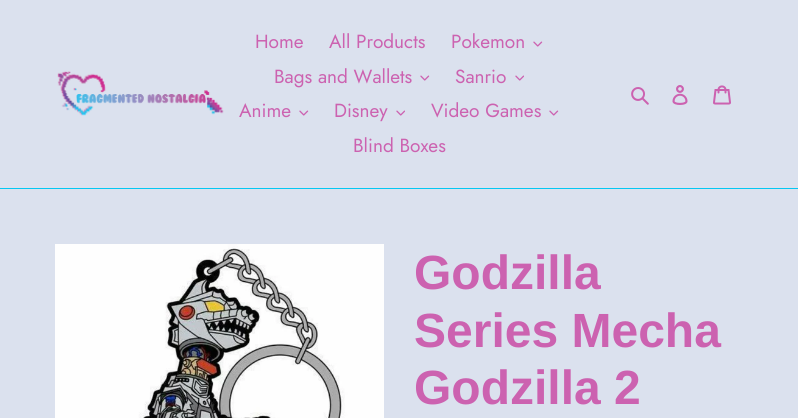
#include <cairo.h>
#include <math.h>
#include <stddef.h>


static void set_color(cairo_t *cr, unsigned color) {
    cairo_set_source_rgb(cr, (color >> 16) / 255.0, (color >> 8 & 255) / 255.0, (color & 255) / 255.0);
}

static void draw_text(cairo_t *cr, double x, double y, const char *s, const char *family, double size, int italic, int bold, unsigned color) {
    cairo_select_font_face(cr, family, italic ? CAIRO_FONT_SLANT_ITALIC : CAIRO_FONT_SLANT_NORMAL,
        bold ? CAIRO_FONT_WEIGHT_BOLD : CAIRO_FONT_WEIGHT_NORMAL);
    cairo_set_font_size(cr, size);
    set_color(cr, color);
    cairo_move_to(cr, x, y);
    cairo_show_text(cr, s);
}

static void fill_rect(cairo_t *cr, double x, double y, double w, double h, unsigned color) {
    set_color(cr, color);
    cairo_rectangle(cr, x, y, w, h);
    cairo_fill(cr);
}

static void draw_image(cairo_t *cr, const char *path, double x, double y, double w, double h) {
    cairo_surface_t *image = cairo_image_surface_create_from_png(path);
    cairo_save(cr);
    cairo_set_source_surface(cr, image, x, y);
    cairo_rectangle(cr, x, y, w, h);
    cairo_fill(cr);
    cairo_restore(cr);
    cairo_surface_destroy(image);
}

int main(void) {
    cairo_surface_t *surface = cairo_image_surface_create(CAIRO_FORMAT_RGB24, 798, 418);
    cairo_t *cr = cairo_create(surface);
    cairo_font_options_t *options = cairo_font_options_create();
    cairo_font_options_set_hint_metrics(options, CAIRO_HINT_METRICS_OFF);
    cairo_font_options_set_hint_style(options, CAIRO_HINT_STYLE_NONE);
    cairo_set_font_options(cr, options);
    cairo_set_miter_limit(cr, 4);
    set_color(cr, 0xDBE1EE);
    cairo_paint(cr);
    fill_rect(cr, 0, 188, 798, 1, 0x05C7F2);
    draw_image(cr, "assets/img1.png", 57, 71, 167, 45);
    draw_text(cr, 255, 48, "Home", "Jost", 19, 0, 0, 0xCC62B0);
    draw_text(cr, 329, 48, "All Products", "Jost", 19, 0, 0, 0xCC62B0);
    draw_text(cr, 451, 48, "Pokemon", "Jost", 19, 0, 0, 0xCC62B0);
    draw_image(cr, "assets/img2.png", 533, 41, 10, 6);
    draw_text(cr, 274, 83, "Bags and Wallets", "Jost", 19, 0, 0, 0xCC62B0);
    draw_image(cr, "assets/img2.png", 420, 75, 10, 6);
    draw_text(cr, 455, 83, "Sanrio", "Jost", 19, 0, 0, 0xCC62B0);
    draw_image(cr, "assets/img3.png", 515, 75, 9, 6);
    draw_text(cr, 239, 117, "Anime", "Jost", 19, 0, 0, 0xCC62B0);
    draw_image(cr, "assets/img2.png", 299, 110, 10, 6);
    draw_text(cr, 334, 117, "Disney", "Jost", 19, 0, 0, 0xCC62B0);
    draw_image(cr, "assets/img3.png", 396, 110, 9, 6);
    draw_text(cr, 431, 117, "Video Games", "Jost", 19, 0, 0, 0xCC62B0);
    draw_image(cr, "assets/img2.png", 549, 110, 10, 6);
    draw_text(cr, 353, 152, "Blind Boxes", "Jost", 19, 0, 0, 0xCC62B0);
    draw_image(cr, "assets/img4.png", 631, 87, 18, 18);
    draw_image(cr, "assets/img5.png", 672, 85, 16, 20);
    draw_image(cr, "assets/img6.png", 713, 85, 18, 20);
    draw_image(cr, "assets/img7.png", 55, 244, 329, 174);
    draw_text(cr, 414, 289, "Godzilla", "Liberation Sans", 48, 0, 1, 0xCC62B0);
    draw_text(cr, 414, 347, "Series Mecha", "Liberation Sans", 48, 0, 1, 0xCC62B0);
    draw_text(cr, 414, 404, "Godzilla 2", "Liberation Sans", 48, 0, 1, 0xCC62B0);
    cairo_surface_write_to_png(surface, "output.png");
    cairo_font_options_destroy(options);
    cairo_destroy(cr);
    cairo_surface_destroy(surface);
    return 0;
}
